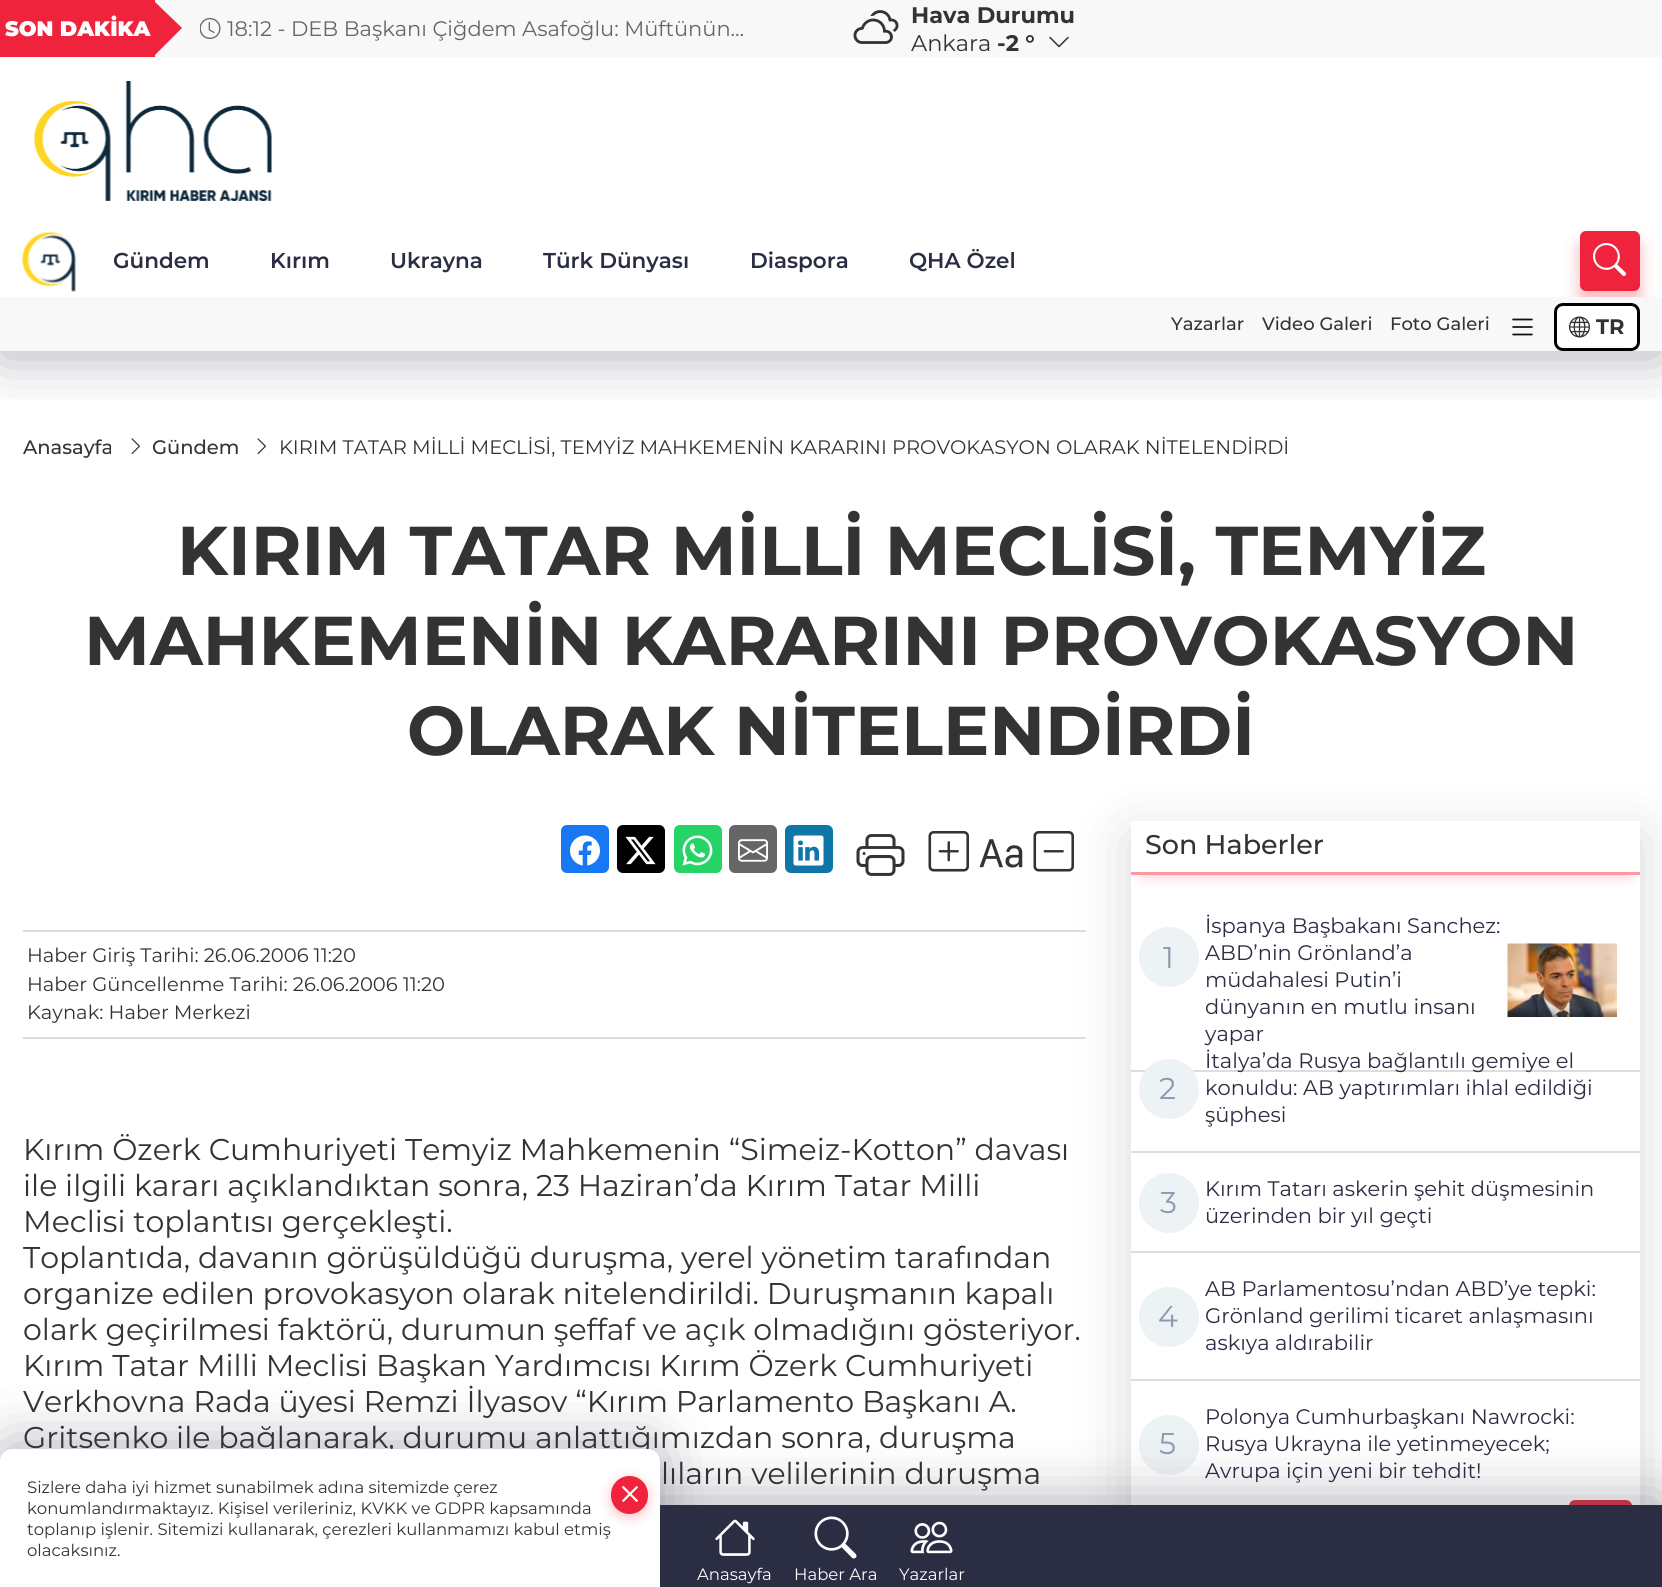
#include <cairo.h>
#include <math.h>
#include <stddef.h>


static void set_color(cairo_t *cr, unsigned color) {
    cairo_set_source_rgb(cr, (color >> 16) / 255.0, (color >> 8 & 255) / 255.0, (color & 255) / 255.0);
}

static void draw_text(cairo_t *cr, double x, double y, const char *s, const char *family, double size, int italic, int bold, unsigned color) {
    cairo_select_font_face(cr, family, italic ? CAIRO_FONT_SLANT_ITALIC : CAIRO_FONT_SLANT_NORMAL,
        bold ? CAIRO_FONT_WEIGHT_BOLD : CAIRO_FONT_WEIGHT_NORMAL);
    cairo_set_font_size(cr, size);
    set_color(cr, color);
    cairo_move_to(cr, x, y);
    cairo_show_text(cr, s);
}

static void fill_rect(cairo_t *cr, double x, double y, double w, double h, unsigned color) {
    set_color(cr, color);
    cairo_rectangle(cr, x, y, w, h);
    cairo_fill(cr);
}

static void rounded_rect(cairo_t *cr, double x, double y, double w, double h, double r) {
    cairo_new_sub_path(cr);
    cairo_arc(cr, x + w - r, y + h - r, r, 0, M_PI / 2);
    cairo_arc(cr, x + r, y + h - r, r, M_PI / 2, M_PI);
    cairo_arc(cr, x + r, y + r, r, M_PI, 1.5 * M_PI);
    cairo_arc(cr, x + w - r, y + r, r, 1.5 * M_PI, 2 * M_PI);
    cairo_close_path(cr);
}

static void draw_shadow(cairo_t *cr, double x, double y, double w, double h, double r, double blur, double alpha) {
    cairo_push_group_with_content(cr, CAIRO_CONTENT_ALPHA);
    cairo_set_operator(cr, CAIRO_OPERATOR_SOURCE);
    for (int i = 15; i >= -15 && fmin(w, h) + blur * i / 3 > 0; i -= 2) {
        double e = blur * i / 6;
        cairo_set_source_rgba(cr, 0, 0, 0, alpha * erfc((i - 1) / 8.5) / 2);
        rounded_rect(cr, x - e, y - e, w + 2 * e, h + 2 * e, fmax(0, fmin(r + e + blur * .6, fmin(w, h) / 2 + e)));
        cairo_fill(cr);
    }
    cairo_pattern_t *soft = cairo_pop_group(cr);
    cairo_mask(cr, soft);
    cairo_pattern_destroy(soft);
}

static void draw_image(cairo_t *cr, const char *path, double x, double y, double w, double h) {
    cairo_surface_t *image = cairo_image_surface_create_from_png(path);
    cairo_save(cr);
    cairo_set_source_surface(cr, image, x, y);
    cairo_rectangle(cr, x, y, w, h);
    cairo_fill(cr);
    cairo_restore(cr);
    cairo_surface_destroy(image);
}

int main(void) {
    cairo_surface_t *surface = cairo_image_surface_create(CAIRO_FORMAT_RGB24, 1662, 1587);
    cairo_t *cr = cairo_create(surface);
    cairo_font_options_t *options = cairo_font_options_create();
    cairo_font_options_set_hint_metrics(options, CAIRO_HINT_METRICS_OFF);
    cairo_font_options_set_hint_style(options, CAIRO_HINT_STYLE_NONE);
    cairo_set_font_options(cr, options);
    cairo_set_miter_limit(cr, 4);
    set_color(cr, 0xFFFFFF);
    cairo_paint(cr);
    draw_image(cr, "assets/img9.png", 131, 438, 9, 17);
    draw_image(cr, "assets/img9.png", 257, 438, 9, 17);
    cairo_save(cr);
    cairo_rectangle(cr, 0, 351, 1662, 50);
    cairo_clip(cr);
    set_color(cr, 0x2B2D42);
    draw_shadow(cr, 0, 5, 1662, 351, 0, 28.5, 0.36);
    cairo_restore(cr);
    fill_rect(cr, 155, 0, 1507, 57, 0xF8F8F8);
    fill_rect(cr, 0, 0, 155, 57, 0xEF233C);
    cairo_new_path(cr);
    cairo_move_to(cr, 154, 1);
    cairo_line_to(cr, 182, 28);
    cairo_line_to(cr, 154, 56);
    cairo_line_to(cr, 127, 28);
    cairo_close_path(cr);
    cairo_fill(cr);
    draw_text(cr, 5, 36, "SON DAKİKA", "Montserrat Black", 21, 0, 0, 0xFFFFFF);
    draw_image(cr, "assets/img1.png", 200, 18, 21, 21);
    draw_text(cr, 227, 36, "18:12 - DEB Başkanı Çiğdem Asafoğlu: Müftünün…", "Montserrat", 21, 0, 0, 0x666666);
    draw_image(cr, "assets/img2.png", 853, 10, 46, 34);
    draw_text(cr, 911, 23, "Hava Durumu", "Montserrat", 22.5, 0, 1, 0x333333);
    draw_text(cr, 911, 51, "Ankara", "Montserrat", 22.5, 0, 0, 0x333333);
    draw_text(cr, 997, 51, "-2 °", "Montserrat", 22.5, 0, 1, 0x333333);
    draw_image(cr, "assets/img3.png", 1049, 36, 20, 12);
    draw_image(cr, "assets/img4.png", 34, 81, 238, 120);
    draw_image(cr, "assets/img5.png", 22, 231, 54, 61);
    draw_text(cr, 113, 268, "Gündem", "Montserrat SemiBold", 21.5, 0, 0, 0x2B2D42);
    draw_text(cr, 270, 268, "Kırım", "Montserrat SemiBold", 21.5, 0, 0, 0x2B2D42);
    draw_text(cr, 390, 268, "Ukrayna", "Montserrat SemiBold", 21.5, 0, 0, 0x2B2D42);
    draw_text(cr, 543, 268, "Türk Dünyası", "Montserrat SemiBold", 21.5, 0, 0, 0x2B2D42);
    draw_text(cr, 750, 268, "Diaspora", "Montserrat SemiBold", 21.5, 0, 0, 0x2B2D42);
    draw_text(cr, 909, 268, "QHA Özel", "Montserrat SemiBold", 21.5, 0, 0, 0x2B2D42);
    set_color(cr, 0xEF233C);
    draw_shadow(cr, 1580, 242, 60, 60, 6, 8, 0.18);
    draw_shadow(cr, 1580, 242, 60, 60, 6, 8, 0.18);
    set_color(cr, 0xEF233C);
    rounded_rect(cr, 1580, 231, 60, 60, 6);
    cairo_fill(cr);
    draw_image(cr, "assets/img6.png", 1593, 243, 33, 33);
    fill_rect(cr, 0, 297, 1662, 54, 0xF8F8F8);
    draw_text(cr, 1171, 330, "Yazarlar", "Montserrat Medium", 18, 0, 0, 0x333333);
    draw_text(cr, 1262, 330, "Video Galeri", "Montserrat Medium", 18, 0, 0, 0x333333);
    draw_text(cr, 1390, 330, "Foto Galeri", "Montserrat Medium", 18, 0, 0, 0x333333);
    draw_image(cr, "assets/img7.png", 1512, 318, 21, 18);
    set_color(cr, 0xFFFFFF);
    rounded_rect(cr, 1555.5, 304.5, 83, 45, 7.5);
    cairo_fill_preserve(cr);
    set_color(cr, 0x000000);
    cairo_set_line_width(cr, 3);
    cairo_stroke(cr);
    draw_image(cr, "assets/img8.png", 1569, 316, 21, 22);
    draw_text(cr, 1596, 334, "TR", "Montserrat", 21, 0, 1, 0x333333);
    draw_text(cr, 23, 454, "Anasayfa", "Montserrat Medium", 19.5, 0, 0, 0x333333);
    draw_text(cr, 152, 454, "Gündem", "Montserrat Medium", 19.5, 0, 0, 0x333333);
    draw_text(cr, 279, 454, "KIRIM TATAR MİLLİ MECLİSİ, TEMYİZ MAHKEMENİN KARARINI PROVOKASYON OLARAK NİTELENDİRDİ", "Montserrat", 19.5, 0, 0, 0x333333);
    draw_text(cr, 177, 575, "KIRIM TATAR MİLLİ MECLİSİ, TEMYİZ", "Montserrat", 69, 0, 1, 0x333333);
    draw_text(cr, 84, 665, "MAHKEMENİN KARARINI PROVOKASYON", "Montserrat", 69, 0, 1, 0x333333);
    draw_text(cr, 407, 755, "OLARAK NİTELENDİRDİ", "Montserrat", 69, 0, 1, 0x333333);
    set_color(cr, 0x1877F2);
    rounded_rect(cr, 561, 825, 48, 48, 6);
    cairo_fill(cr);
    draw_image(cr, "assets/img10.png", 570, 835, 30, 31);
    set_color(cr, 0x000000);
    rounded_rect(cr, 617, 825, 48, 48, 6);
    cairo_fill(cr);
    draw_image(cr, "assets/img11.png", 625, 836, 31, 29);
    set_color(cr, 0x25D366);
    rounded_rect(cr, 674, 825, 48, 48, 6);
    cairo_fill(cr);
    draw_image(cr, "assets/img12.png", 682, 835, 31, 31);
    set_color(cr, 0x666666);
    rounded_rect(cr, 729, 825, 48, 48, 6);
    cairo_fill(cr);
    draw_image(cr, "assets/img13.png", 738, 839, 30, 23);
    set_color(cr, 0x0E76A8);
    rounded_rect(cr, 785, 825, 48, 48, 6);
    cairo_fill(cr);
    draw_image(cr, "assets/img14.png", 793, 835, 31, 31);
    draw_image(cr, "assets/img15.png", 856, 834, 49, 42);
    draw_image(cr, "assets/img16.png", 928, 831, 41, 41);
    draw_image(cr, "assets/img17.png", 979, 839, 44, 29);
    draw_image(cr, "assets/img18.png", 1033, 831, 41, 41);
    fill_rect(cr, 23, 930, 1063, 2, 0xDDDDDD);
    fill_rect(cr, 23, 1037, 1063, 2, 0xDDDDDD);
    draw_text(cr, 27, 962, "Haber Giriş Tarihi: 26.06.2006 11:20", "Montserrat", 19.5, 0, 0, 0x333333);
    draw_text(cr, 27, 991, "Haber Güncellenme Tarihi: 26.06.2006 11:20", "Montserrat", 19.5, 0, 0, 0x333333);
    draw_text(cr, 27, 1019, "Kaynak: Haber Merkezi", "Montserrat", 19.5, 0, 0, 0x333333);
    draw_text(cr, 23, 1160, "Kırım Özerk Cumhuriyeti Temyiz Mahkemenin “Simeiz-Kotton” davası", "Montserrat", 30, 0, 0, 0x333333);
    draw_text(cr, 23, 1196, "ile ilgili kararı açıklandıktan sonra, 23 Haziran’da Kırım Tatar Milli", "Montserrat", 30, 0, 0, 0x333333);
    draw_text(cr, 23, 1232, "Meclisi toplantısı gerçekleşti.", "Montserrat", 30, 0, 0, 0x333333);
    draw_text(cr, 23, 1268, "Toplantıda, davanın görüşüldüğü duruşma, yerel yönetim tarafından", "Montserrat", 30, 0, 0, 0x333333);
    draw_text(cr, 23, 1304, "organize edilen provokasyon olarak nitelendirildi. Duruşmanın kapalı", "Montserrat", 30, 0, 0, 0x333333);
    draw_text(cr, 23, 1340, "olark geçirilmesi faktörü, durumun şeffaf ve açık olmadığını gösteriyor.", "Montserrat", 30, 0, 0, 0x333333);
    draw_text(cr, 23, 1376, "Kırım Tatar Milli Meclisi Başkan Yardımcısı Kırım Özerk Cumhuriyeti", "Montserrat", 30, 0, 0, 0x333333);
    draw_text(cr, 23, 1412, "Verkhovna Rada üyesi Remzi İlyasov “Kırım Parlamento Başkanı A.", "Montserrat", 30, 0, 0, 0x333333);
    draw_text(cr, 23, 1448, "Gritsenko ile bağlanarak, durumu anlattığımızdan sonra, duruşma", "Montserrat", 30, 0, 0, 0x333333);
    draw_text(cr, 661, 1484, "lıların velilerinin duruşma", "Montserrat", 30, 0, 0, 0x333333);
    set_color(cr, 0x000000);
    draw_shadow(cr, 1131, 836, 509, 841, 0, 30, 0.15);
    fill_rect(cr, 1131, 821, 509, 684, 0xFFFFFF);
    cairo_save(cr);
    cairo_set_fill_rule(cr, CAIRO_FILL_RULE_EVEN_ODD);
    cairo_new_path(cr);
    cairo_move_to(cr, 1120, 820);
    cairo_line_to(cr, 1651, 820);
    cairo_line_to(cr, 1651, 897);
    cairo_line_to(cr, 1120, 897);
    cairo_close_path(cr);
    cairo_move_to(cr, 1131, 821);
    cairo_line_to(cr, 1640, 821);
    cairo_line_to(cr, 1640, 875);
    cairo_line_to(cr, 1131, 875);
    cairo_close_path(cr);
    cairo_clip(cr);
    set_color(cr, 0xFF566A);
    draw_shadow(cr, 1142, 842, 487, 33, 0, 7, 0.38);
    cairo_restore(cr);
    cairo_set_source_rgba(cr, 1, 0.318, 0.404, 0.6);
    cairo_rectangle(cr, 1131, 872, 509, 3);
    cairo_fill(cr);
    draw_text(cr, 1145, 854, "Son Haberler", "Montserrat Medium", 27, 0, 0, 0x333333);
    set_color(cr, 0xEDF2F4);
    cairo_new_path(cr);
    cairo_arc(cr, 1169, 957, 30, 0, 2 * M_PI);
    cairo_fill(cr);
    draw_text(cr, 1163, 968, "1", "Montserrat", 30, 0, 0, 0x8D99AE);
    fill_rect(cr, 1131, 1070, 509, 2, 0xDDDDDD);
    draw_text(cr, 1205, 933, "İspanya Başbakanı Sanchez:", "Montserrat", 21, 0, 0, 0x2B2D42);
    draw_text(cr, 1205, 960, "ABD’nin Grönland’a", "Montserrat", 21, 0, 0, 0x2B2D42);
    draw_text(cr, 1205, 987, "müdahalesi Putin’i", "Montserrat", 21, 0, 0, 0x2B2D42);
    draw_text(cr, 1205, 1014, "dünyanın en mutlu insanı", "Montserrat", 21, 0, 0, 0x2B2D42);
    draw_text(cr, 1205, 1041, "yapar", "Montserrat", 21, 0, 0, 0x2B2D42);
    draw_image(cr, "assets/img19.png", 1507, 943, 110, 74);
    set_color(cr, 0xEDF2F4);
    cairo_arc(cr, 1169, 1089, 30, 0, 2 * M_PI);
    cairo_fill(cr);
    draw_text(cr, 1159, 1099, "2", "Montserrat", 30, 0, 0, 0x8D99AE);
    fill_rect(cr, 1131, 1151, 509, 2, 0xDDDDDD);
    draw_text(cr, 1205, 1068, "İtalya’da Rusya bağlantılı gemiye el", "Montserrat", 21, 0, 0, 0x2B2D42);
    draw_text(cr, 1205, 1095, "konuldu: AB yaptırımları ihlal edildiği", "Montserrat", 21, 0, 0, 0x2B2D42);
    draw_text(cr, 1205, 1122, "şüphesi", "Montserrat", 21, 0, 0, 0x2B2D42);
    set_color(cr, 0xEDF2F4);
    cairo_new_path(cr);
    cairo_arc(cr, 1169, 1203, 30, 0, 2 * M_PI);
    cairo_fill(cr);
    draw_text(cr, 1160, 1213, "3", "Montserrat", 30, 0, 0, 0x8D99AE);
    fill_rect(cr, 1131, 1251, 509, 2, 0xDDDDDD);
    draw_text(cr, 1205, 1196, "Kırım Tatarı askerin şehit düşmesinin", "Montserrat", 21, 0, 0, 0x2B2D42);
    draw_text(cr, 1205, 1223, "üzerinden bir yıl geçti", "Montserrat", 21, 0, 0, 0x2B2D42);
    set_color(cr, 0xEDF2F4);
    cairo_new_path(cr);
    cairo_arc(cr, 1169, 1317, 30, 0, 2 * M_PI);
    cairo_fill(cr);
    draw_text(cr, 1158, 1327, "4", "Montserrat", 30, 0, 0, 0x8D99AE);
    fill_rect(cr, 1131, 1379, 509, 2, 0xDDDDDD);
    draw_text(cr, 1205, 1296, "AB Parlamentosu’ndan ABD’ye tepki:", "Montserrat", 21, 0, 0, 0x2B2D42);
    draw_text(cr, 1205, 1323, "Grönland gerilimi ticaret anlaşmasını", "Montserrat", 21, 0, 0, 0x2B2D42);
    draw_text(cr, 1205, 1350, "askıya aldırabilir", "Montserrat", 21, 0, 0, 0x2B2D42);
    set_color(cr, 0xEDF2F4);
    cairo_new_path(cr);
    cairo_arc(cr, 1169, 1445, 30, 0, 2 * M_PI);
    cairo_fill(cr);
    draw_text(cr, 1159, 1454, "5", "Montserrat", 30, 0, 0, 0x8D99AE);
    draw_text(cr, 1205, 1424, "Polonya Cumhurbaşkanı Nawrocki:", "Montserrat", 21, 0, 0, 0x2B2D42);
    draw_text(cr, 1205, 1451, "Rusya Ukrayna ile yetinmeyecek;", "Montserrat", 21, 0, 0, 0x2B2D42);
    draw_text(cr, 1205, 1478, "Avrupa için yeni bir tehdit!", "Montserrat", 21, 0, 0, 0x2B2D42);
    set_color(cr, 0xDC3545);
    rounded_rect(cr, 1570, 1501, 61, 55, 5);
    cairo_fill_preserve(cr);
    cairo_set_line_width(cr, 2);
    cairo_stroke(cr);
    set_color(cr, 0x2B2D42);
    draw_shadow(cr, 0, 1500, 1662, 83, 0, 28.5, 0.36);
    fill_rect(cr, 660, 1505, 1002, 82, 0x2B2D42);
    draw_image(cr, "assets/img20.png", 715, 1519, 40, 37);
    draw_text(cr, 697, 1580, "Anasayfa", "Montserrat", 16.5, 0, 0, 0xFFFFFF);
    draw_image(cr, "assets/img21.png", 814, 1516, 43, 43);
    draw_text(cr, 794, 1580, "Haber Ara", "Montserrat", 16.5, 0, 0, 0xFFFFFF);
    draw_image(cr, "assets/img22.png", 910, 1521, 43, 33);
    draw_text(cr, 899, 1580, "Yazarlar", "Montserrat", 16.5, 0, 0, 0xFFFFFF);
    set_color(cr, 0x2B2D42);
    draw_shadow(cr, 0, 1445, 660, 138, 12, 28.5, 0.36);
    set_color(cr, 0xFFFFFF);
    cairo_new_path(cr);
    cairo_move_to(cr, 12, 1449);
    cairo_line_to(cr, 648, 1449);
    cairo_curve_to(cr, 654.5, 1449, 660, 1454.5, 660, 1461);
    cairo_line_to(cr, 660, 1587);
    cairo_line_to(cr, 0, 1587);
    cairo_line_to(cr, 0, 1461);
    cairo_curve_to(cr, 0, 1454.5, 5.5, 1449, 12, 1449);
    cairo_close_path(cr);
    cairo_fill(cr);
    draw_text(cr, 27, 1493, "Sizlere daha iyi hizmet sunabilmek adına sitemizde çerez", "Montserrat", 16.5, 0, 0, 0x333333);
    set_color(cr, 0xFF566A);
    draw_shadow(cr, 611, 1479, 37, 38, 18.5, 6, 0.38);
    set_color(cr, 0xEF233C);
    rounded_rect(cr, 611, 1476, 37, 38, 18.5);
    cairo_fill(cr);
    draw_image(cr, "assets/img23.png", 622, 1486, 16, 16);
    draw_text(cr, 27, 1514, "konumlandırmaktayız. Kişisel verileriniz, KVKK ve GDPR kapsamında", "Montserrat", 16.5, 0, 0, 0x333333);
    draw_text(cr, 27, 1535, "toplanıp işlenir. Sitemizi kullanarak, çerezleri kullanmamızı kabul etmiş", "Montserrat", 16.5, 0, 0, 0x333333);
    draw_text(cr, 27, 1556, "olacaksınız.", "Montserrat", 16.5, 0, 0, 0x333333);
    cairo_surface_write_to_png(surface, "output.png");
    cairo_font_options_destroy(options);
    cairo_destroy(cr);
    cairo_surface_destroy(surface);
    return 0;
}
